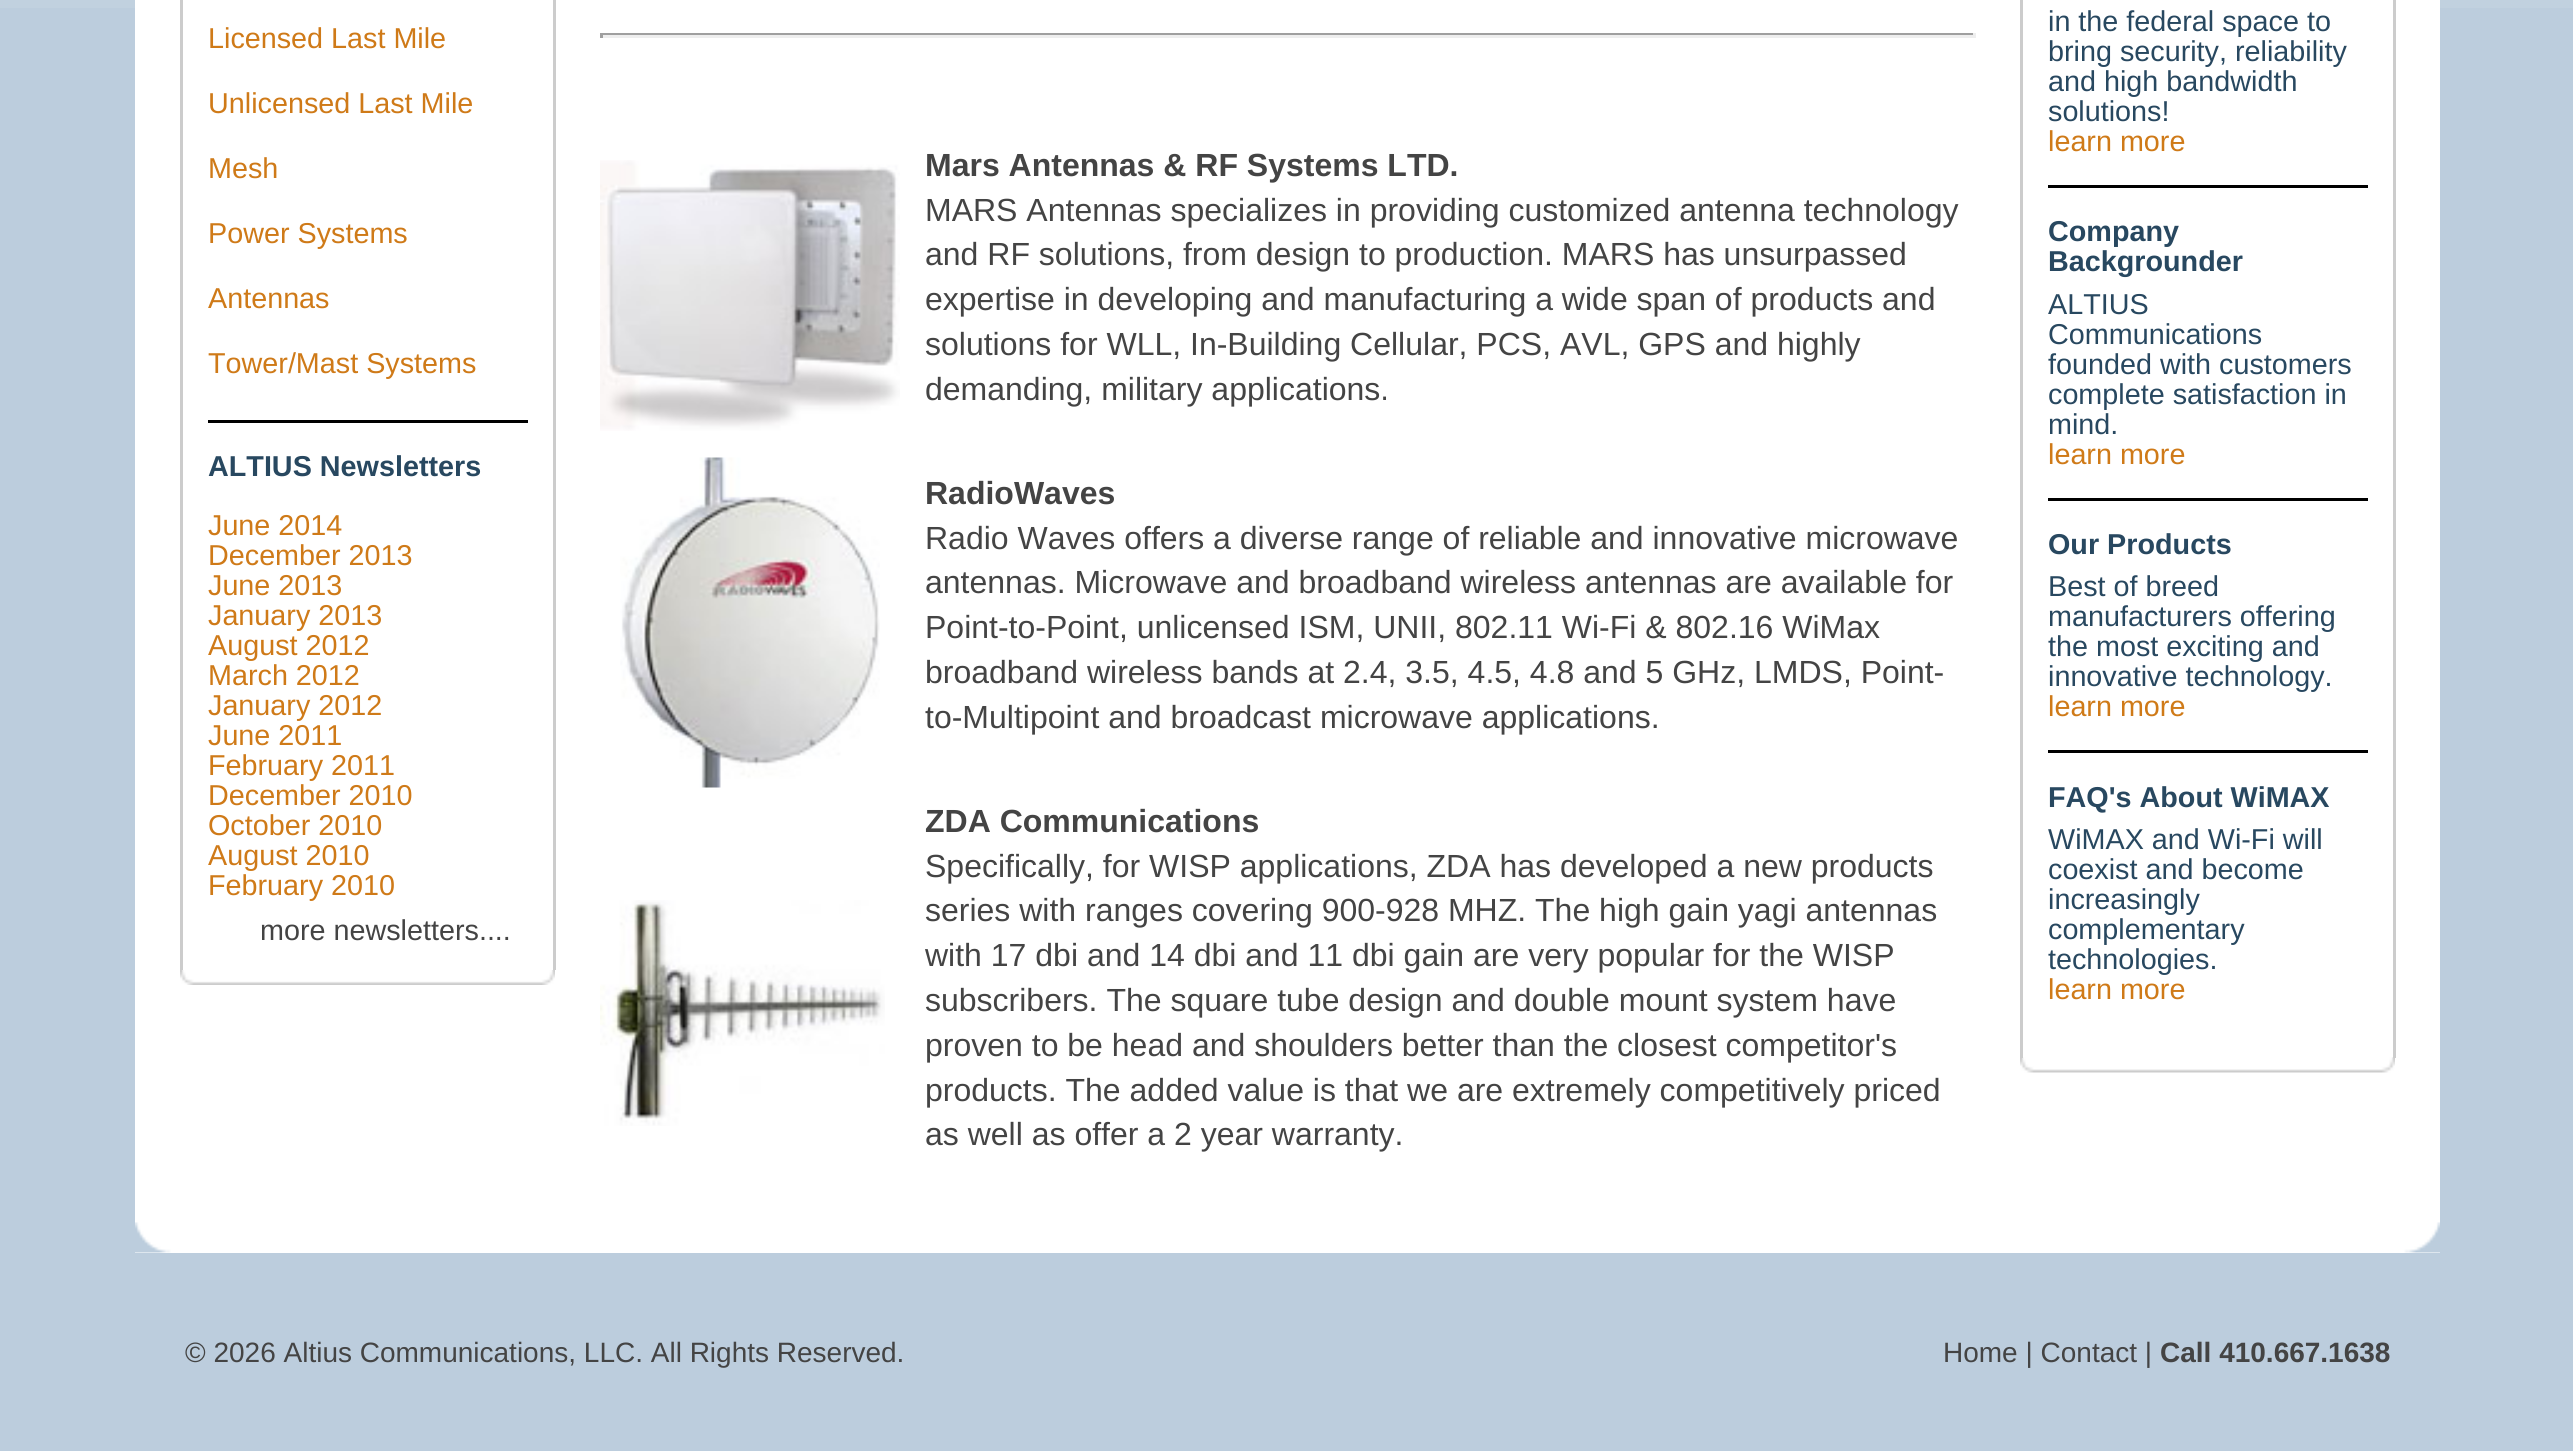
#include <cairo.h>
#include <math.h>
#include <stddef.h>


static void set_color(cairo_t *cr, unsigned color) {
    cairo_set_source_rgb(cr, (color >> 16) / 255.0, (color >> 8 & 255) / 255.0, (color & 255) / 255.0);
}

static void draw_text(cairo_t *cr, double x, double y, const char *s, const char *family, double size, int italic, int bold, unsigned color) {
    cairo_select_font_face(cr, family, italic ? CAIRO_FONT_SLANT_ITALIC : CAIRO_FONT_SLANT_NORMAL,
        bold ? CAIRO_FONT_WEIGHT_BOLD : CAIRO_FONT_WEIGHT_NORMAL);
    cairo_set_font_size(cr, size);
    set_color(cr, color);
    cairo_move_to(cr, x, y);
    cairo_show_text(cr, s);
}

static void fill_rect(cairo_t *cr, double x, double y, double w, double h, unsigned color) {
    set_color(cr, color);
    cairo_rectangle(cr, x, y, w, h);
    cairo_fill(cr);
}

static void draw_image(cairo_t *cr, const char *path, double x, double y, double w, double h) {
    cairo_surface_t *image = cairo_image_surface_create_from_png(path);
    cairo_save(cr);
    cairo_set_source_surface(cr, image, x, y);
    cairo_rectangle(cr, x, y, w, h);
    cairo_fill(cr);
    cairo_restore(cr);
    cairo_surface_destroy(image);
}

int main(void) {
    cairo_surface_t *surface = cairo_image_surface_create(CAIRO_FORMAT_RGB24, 2573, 1451);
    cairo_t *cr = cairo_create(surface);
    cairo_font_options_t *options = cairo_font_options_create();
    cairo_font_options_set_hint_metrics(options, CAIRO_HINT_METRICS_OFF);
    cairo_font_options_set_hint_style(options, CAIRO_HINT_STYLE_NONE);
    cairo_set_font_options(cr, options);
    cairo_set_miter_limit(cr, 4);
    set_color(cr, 0xBCCDDD);
    cairo_paint(cr);
    fill_rect(cr, 0, 0, 2573, 8, 0xC1D1DF);
    fill_rect(cr, 135, 0, 2305, 1253, 0xFFFFFF);
    draw_image(cr, "assets/img1.png", 135, 1222, 2305, 31);
    fill_rect(cr, 553, 0, 3, 970, 0xCCCCCC);
    fill_rect(cr, 180, 0, 3, 970, 0xCCCCCC);
    draw_text(cr, 208, 48, "Licensed Last Mile", "Liberation Sans", 28.75, 0, 0, 0xCF7A18);
    draw_text(cr, 208, 113, "Unlicensed Last Mile", "Liberation Sans", 28.75, 0, 0, 0xCF7A18);
    draw_text(cr, 208, 178, "Mesh", "Liberation Sans", 28.75, 0, 0, 0xCF7A18);
    draw_text(cr, 208, 243, "Power Systems", "Liberation Sans", 28.75, 0, 0, 0xCF7A18);
    draw_text(cr, 208, 308, "Antennas", "Liberation Sans", 28.75, 0, 0, 0xCF7A18);
    draw_text(cr, 208, 373, "Tower/Mast Systems", "Liberation Sans", 28.75, 0, 0, 0xCF7A18);
    fill_rect(cr, 208, 420, 320, 3, 0x000000);
    draw_text(cr, 208, 476, "ALTIUS Newsletters", "Liberation Sans", 28.75, 0, 1, 0x284860);
    draw_text(cr, 208, 535, "June 2014", "Liberation Sans", 28.75, 0, 0, 0xCF7A18);
    draw_text(cr, 208, 565, "December 2013", "Liberation Sans", 28.75, 0, 0, 0xCF7A18);
    draw_text(cr, 208, 595, "June 2013", "Liberation Sans", 28.75, 0, 0, 0xCF7A18);
    draw_text(cr, 208, 625, "January 2013", "Liberation Sans", 28.75, 0, 0, 0xCF7A18);
    draw_text(cr, 208, 655, "August 2012", "Liberation Sans", 28.75, 0, 0, 0xCF7A18);
    draw_text(cr, 208, 685, "March 2012", "Liberation Sans", 28.75, 0, 0, 0xCF7A18);
    draw_text(cr, 208, 715, "January 2012", "Liberation Sans", 28.75, 0, 0, 0xCF7A18);
    draw_text(cr, 208, 745, "June 2011", "Liberation Sans", 28.75, 0, 0, 0xCF7A18);
    draw_text(cr, 208, 775, "February 2011", "Liberation Sans", 28.75, 0, 0, 0xCF7A18);
    draw_text(cr, 208, 805, "December 2010", "Liberation Sans", 28.75, 0, 0, 0xCF7A18);
    draw_text(cr, 208, 835, "October 2010", "Liberation Sans", 28.75, 0, 0, 0xCF7A18);
    draw_text(cr, 208, 865, "August 2010", "Liberation Sans", 28.75, 0, 0, 0xCF7A18);
    draw_text(cr, 208, 895, "February 2010", "Liberation Sans", 28.75, 0, 0, 0xCF7A18);
    draw_text(cr, 260, 940, "more newsletters....", "Liberation Sans", 28.75, 0, 0, 0x444444);
    draw_image(cr, "assets/img2.png", 180, 970, 375, 15);
    fill_rect(cr, 600, 33, 1375, 2, 0x9F9F9F);
    fill_rect(cr, 1973, 33, 3, 5, 0xEEEEEE);
    fill_rect(cr, 600, 35, 1375, 3, 0xEEEEEE);
    fill_rect(cr, 600, 33, 3, 5, 0x9F9F9F);
    draw_image(cr, "assets/img3.png", 600, 160, 300, 271);
    draw_text(cr, 925, 176, "Mars Antennas & RF Systems LTD.", "Liberation Sans", 32, 0, 1, 0x444444);
    draw_text(cr, 925, 221, "MARS Antennas specializes in providing customized antenna technology", "Liberation Sans", 32, 0, 0, 0x444444);
    draw_text(cr, 925, 265, "and RF solutions, from design to production. MARS has unsurpassed", "Liberation Sans", 32, 0, 0, 0x444444);
    draw_text(cr, 925, 310, "expertise in developing and manufacturing a wide span of products and", "Liberation Sans", 32, 0, 0, 0x444444);
    draw_text(cr, 925, 355, "solutions for WLL, In-Building Cellular, PCS, AVL, GPS and highly", "Liberation Sans", 32, 0, 0, 0x444444);
    draw_text(cr, 925, 400, "demanding, military applications.", "Liberation Sans", 32, 0, 0, 0x444444);
    draw_image(cr, "assets/img4.png", 620, 457, 260, 331);
    draw_text(cr, 925, 504, "RadioWaves", "Liberation Sans", 32, 0, 1, 0x444444);
    draw_text(cr, 925, 549, "Radio Waves offers a diverse range of reliable and innovative microwave", "Liberation Sans", 32, 0, 0, 0x444444);
    draw_text(cr, 925, 593, "antennas. Microwave and broadband wireless antennas are available for", "Liberation Sans", 32, 0, 0, 0x444444);
    draw_text(cr, 925, 638, "Point-to-Point, unlicensed ISM, UNII, 802.11 Wi-Fi & 802.16 WiMax", "Liberation Sans", 32, 0, 0, 0x444444);
    draw_text(cr, 925, 683, "broadband wireless bands at 2.4, 3.5, 4.5, 4.8 and 5 GHz, LMDS, Point-", "Liberation Sans", 32, 0, 0, 0x444444);
    draw_text(cr, 925, 728, "to-Multipoint and broadcast microwave applications.", "Liberation Sans", 32, 0, 0, 0x444444);
    draw_image(cr, "assets/img5.png", 600, 900, 285, 226);
    draw_text(cr, 925, 832, "ZDA Communications", "Liberation Sans", 32, 0, 1, 0x444444);
    draw_text(cr, 925, 877, "Specifically, for WISP applications, ZDA has developed a new products", "Liberation Sans", 32, 0, 0, 0x444444);
    draw_text(cr, 925, 921, "series with ranges covering 900-928 MHZ. The high gain yagi antennas", "Liberation Sans", 32, 0, 0, 0x444444);
    draw_text(cr, 925, 966, "with 17 dbi and 14 dbi and 11 dbi gain are very popular for the WISP", "Liberation Sans", 32, 0, 0, 0x444444);
    draw_text(cr, 925, 1011, "subscribers. The square tube design and double mount system have", "Liberation Sans", 32, 0, 0, 0x444444);
    draw_text(cr, 925, 1056, "proven to be head and shoulders better than the closest competitor's", "Liberation Sans", 32, 0, 0, 0x444444);
    draw_text(cr, 925, 1101, "products. The added value is that we are extremely competitively priced", "Liberation Sans", 32, 0, 0, 0x444444);
    draw_text(cr, 925, 1145, "as well as offer a 2 year warranty.", "Liberation Sans", 32, 0, 0, 0x444444);
    draw_image(cr, "assets/img6.png", 2020, 1057, 375, 16);
    fill_rect(cr, 2393, 0, 3, 1058, 0xCCCCCC);
    fill_rect(cr, 2020, 0, 3, 1058, 0xCCCCCC);
    draw_text(cr, 2048, 31, "in the federal space to", "Liberation Sans", 28.75, 0, 0, 0x284860);
    draw_text(cr, 2048, 61, "bring security, reliability", "Liberation Sans", 28.75, 0, 0, 0x284860);
    draw_text(cr, 2048, 91, "and high bandwidth", "Liberation Sans", 28.75, 0, 0, 0x284860);
    draw_text(cr, 2048, 121, "solutions!", "Liberation Sans", 28.75, 0, 0, 0x284860);
    draw_text(cr, 2048, 151, "learn more", "Liberation Sans", 28.75, 0, 0, 0xCF7A18);
    fill_rect(cr, 2048, 185, 320, 3, 0x000000);
    draw_text(cr, 2048, 241, "Company", "Liberation Sans", 28.75, 0, 1, 0x284860);
    draw_text(cr, 2048, 271, "Backgrounder", "Liberation Sans", 28.75, 0, 1, 0x284860);
    draw_text(cr, 2048, 314, "ALTIUS", "Liberation Sans", 28.75, 0, 0, 0x284860);
    draw_text(cr, 2048, 344, "Communications", "Liberation Sans", 28.75, 0, 0, 0x284860);
    draw_text(cr, 2048, 374, "founded with customers", "Liberation Sans", 28.75, 0, 0, 0x284860);
    draw_text(cr, 2048, 404, "complete satisfaction in", "Liberation Sans", 28.75, 0, 0, 0x284860);
    draw_text(cr, 2048, 434, "mind.", "Liberation Sans", 28.75, 0, 0, 0x284860);
    draw_text(cr, 2048, 464, "learn more", "Liberation Sans", 28.75, 0, 0, 0xCF7A18);
    fill_rect(cr, 2048, 498, 320, 3, 0x000000);
    draw_text(cr, 2048, 554, "Our Products", "Liberation Sans", 28.75, 0, 1, 0x284860);
    draw_text(cr, 2048, 596, "Best of breed", "Liberation Sans", 28.75, 0, 0, 0x284860);
    draw_text(cr, 2048, 626, "manufacturers offering", "Liberation Sans", 28.75, 0, 0, 0x284860);
    draw_text(cr, 2048, 656, "the most exciting and", "Liberation Sans", 28.75, 0, 0, 0x284860);
    draw_text(cr, 2048, 686, "innovative technology.", "Liberation Sans", 28.75, 0, 0, 0x284860);
    draw_text(cr, 2048, 716, "learn more", "Liberation Sans", 28.75, 0, 0, 0xCF7A18);
    fill_rect(cr, 2048, 750, 320, 3, 0x000000);
    draw_text(cr, 2048, 807, "FAQ's About WiMAX", "Liberation Sans", 28.75, 0, 1, 0x284860);
    draw_text(cr, 2048, 849, "WiMAX and Wi-Fi will", "Liberation Sans", 28.75, 0, 0, 0x284860);
    draw_text(cr, 2048, 879, "coexist and become", "Liberation Sans", 28.75, 0, 0, 0x284860);
    draw_text(cr, 2048, 909, "increasingly", "Liberation Sans", 28.75, 0, 0, 0x284860);
    draw_text(cr, 2048, 939, "complementary", "Liberation Sans", 28.75, 0, 0, 0x284860);
    draw_text(cr, 2048, 969, "technologies.", "Liberation Sans", 28.75, 0, 0, 0x284860);
    draw_text(cr, 2048, 999, "learn more", "Liberation Sans", 28.75, 0, 0, 0xCF7A18);
    draw_text(cr, 185, 1362, "© 2026 Altius Communications, LLC. All Rights Reserved.", "Liberation Sans", 28, 0, 0, 0x444444);
    draw_text(cr, 1943, 1362, "Home | Contact |", "Liberation Sans", 28, 0, 0, 0x444444);
    draw_text(cr, 2160, 1362, "Call 410.667.1638", "Liberation Sans", 28, 0, 1, 0x444444);
    cairo_surface_write_to_png(surface, "output.png");
    cairo_font_options_destroy(options);
    cairo_destroy(cr);
    cairo_surface_destroy(surface);
    return 0;
}
